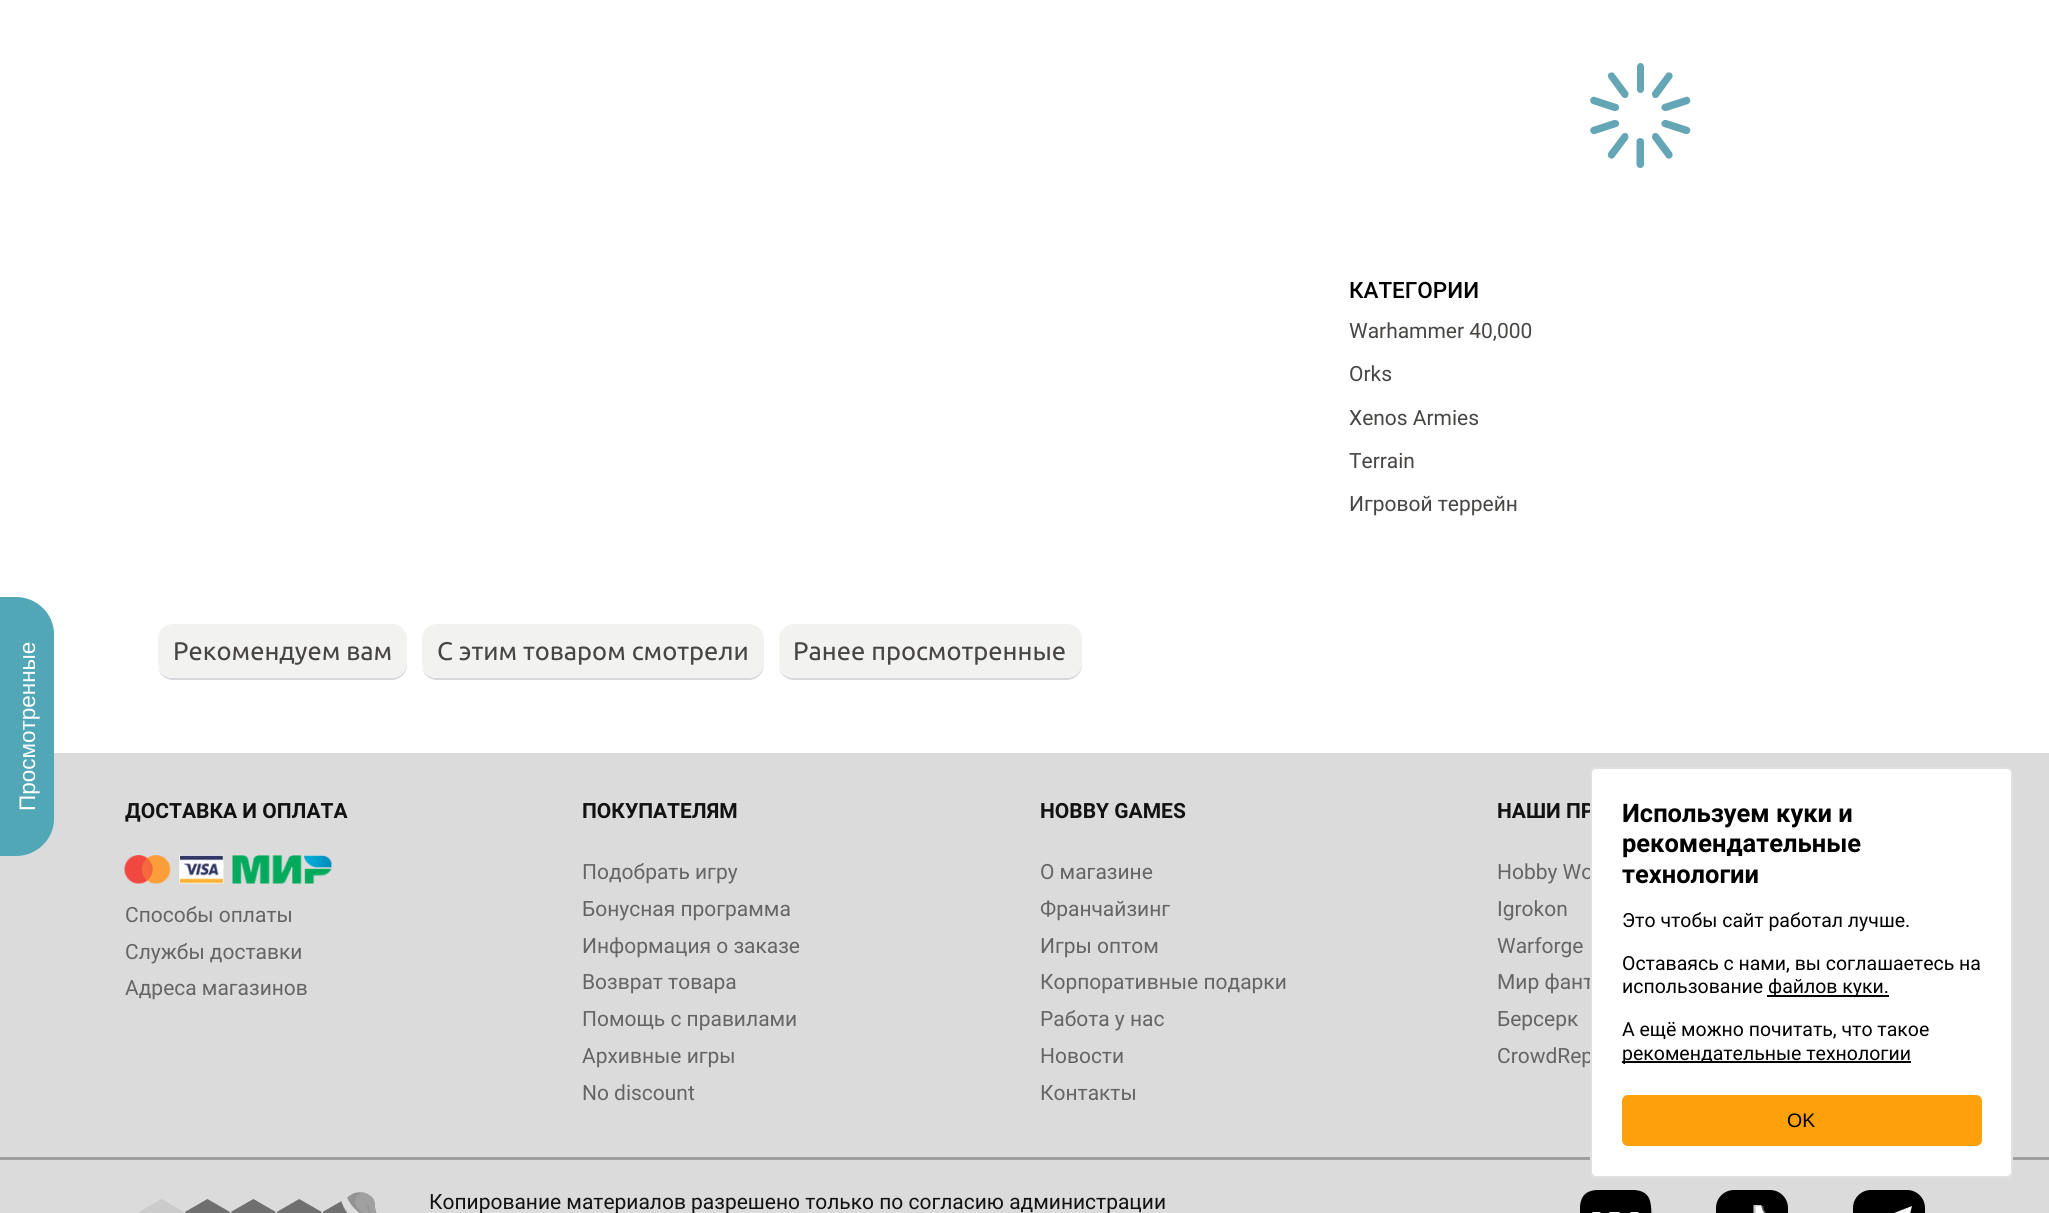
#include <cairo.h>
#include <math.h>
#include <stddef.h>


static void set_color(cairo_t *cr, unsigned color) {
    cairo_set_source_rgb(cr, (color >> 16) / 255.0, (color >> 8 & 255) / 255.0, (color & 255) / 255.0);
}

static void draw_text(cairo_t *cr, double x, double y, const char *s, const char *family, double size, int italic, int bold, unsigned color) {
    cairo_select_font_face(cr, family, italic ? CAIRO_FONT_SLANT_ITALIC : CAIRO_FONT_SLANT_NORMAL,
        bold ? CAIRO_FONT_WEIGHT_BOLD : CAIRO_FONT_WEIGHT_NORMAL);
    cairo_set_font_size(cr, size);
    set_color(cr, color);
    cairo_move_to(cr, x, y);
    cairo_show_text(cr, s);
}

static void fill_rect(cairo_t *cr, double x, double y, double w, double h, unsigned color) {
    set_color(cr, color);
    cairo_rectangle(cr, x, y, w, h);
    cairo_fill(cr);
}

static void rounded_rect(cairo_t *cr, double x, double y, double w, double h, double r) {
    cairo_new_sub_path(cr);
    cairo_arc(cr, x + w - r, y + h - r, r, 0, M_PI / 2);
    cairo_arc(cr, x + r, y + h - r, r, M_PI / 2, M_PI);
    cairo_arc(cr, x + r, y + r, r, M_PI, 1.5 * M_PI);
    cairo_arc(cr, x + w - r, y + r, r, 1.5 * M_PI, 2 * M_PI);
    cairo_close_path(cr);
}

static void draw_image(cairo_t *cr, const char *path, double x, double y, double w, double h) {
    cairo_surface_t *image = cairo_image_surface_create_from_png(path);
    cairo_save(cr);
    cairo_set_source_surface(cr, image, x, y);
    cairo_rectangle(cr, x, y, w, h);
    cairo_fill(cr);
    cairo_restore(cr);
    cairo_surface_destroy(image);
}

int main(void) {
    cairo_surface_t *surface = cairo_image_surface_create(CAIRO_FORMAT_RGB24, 2049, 1213);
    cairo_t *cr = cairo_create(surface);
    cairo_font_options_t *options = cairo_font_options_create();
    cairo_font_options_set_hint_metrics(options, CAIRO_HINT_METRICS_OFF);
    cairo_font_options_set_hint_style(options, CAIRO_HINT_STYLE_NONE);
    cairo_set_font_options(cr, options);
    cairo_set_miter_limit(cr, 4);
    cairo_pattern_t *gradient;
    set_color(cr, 0xFFFFFF);
    cairo_paint(cr);
    set_color(cr, 0x64A6B5);
    cairo_new_path(cr);
    cairo_move_to(cr, 1609.5, 158);
    cairo_curve_to(cr, 1607.5, 156.5, 1607.5, 154.5, 1608.5, 152.5);
    cairo_line_to(cr, 1622, 134.5);
    cairo_curve_to(cr, 1623, 133, 1625.5, 132.5, 1627, 133.5);
    cairo_curve_to(cr, 1628.5, 135, 1629, 137, 1628, 139);
    cairo_line_to(cr, 1614.5, 157);
    cairo_curve_to(cr, 1613.5, 159, 1611, 159, 1609.5, 158);
    cairo_close_path(cr);
    cairo_fill(cr);
    cairo_new_path(cr);
    cairo_move_to(cr, 1590.5, 131.5);
    cairo_curve_to(cr, 1589.5, 129.5, 1591, 127.5, 1592.5, 127);
    cairo_line_to(cr, 1614, 120);
    cairo_curve_to(cr, 1616, 119.5, 1618, 120.5, 1619, 122.5);
    cairo_curve_to(cr, 1619.5, 124.5, 1618.5, 126.5, 1616.5, 127);
    cairo_line_to(cr, 1595, 134);
    cairo_curve_to(cr, 1593, 134.5, 1591, 133.5, 1590.5, 131.5);
    cairo_close_path(cr);
    cairo_move_to(cr, 1590.5, 99);
    cairo_curve_to(cr, 1591, 97.5, 1593, 96, 1595, 97);
    cairo_line_to(cr, 1616.5, 104);
    cairo_curve_to(cr, 1618.5, 104.5, 1619.5, 106.5, 1619, 108.5);
    cairo_curve_to(cr, 1618, 110.5, 1616, 111.5, 1614, 111);
    cairo_line_to(cr, 1592.5, 104);
    cairo_curve_to(cr, 1591, 103.5, 1589.5, 101, 1590.5, 99);
    cairo_close_path(cr);
    cairo_fill(cr);
    cairo_new_path(cr);
    cairo_move_to(cr, 1609.5, 73);
    cairo_curve_to(cr, 1611, 72, 1613.5, 72, 1614.5, 74);
    cairo_line_to(cr, 1628, 92);
    cairo_curve_to(cr, 1629, 93.5, 1628.5, 96, 1627, 97.5);
    cairo_curve_to(cr, 1625.5, 98.5, 1623, 98, 1622, 96.5);
    cairo_line_to(cr, 1608.5, 78);
    cairo_curve_to(cr, 1607.5, 76.5, 1607.5, 74, 1609.5, 73);
    cairo_close_path(cr);
    cairo_fill(cr);
    rounded_rect(cr, 1637, 63, 7, 30, 3.5);
    cairo_fill(cr);
    cairo_new_path(cr);
    cairo_move_to(cr, 1671, 73);
    cairo_curve_to(cr, 1673, 74, 1673, 76.5, 1672, 78);
    cairo_line_to(cr, 1658.5, 96.5);
    cairo_curve_to(cr, 1657.5, 98, 1655, 98.5, 1653.5, 97.5);
    cairo_curve_to(cr, 1652, 96, 1651.5, 93.5, 1652.5, 92);
    cairo_line_to(cr, 1666, 74);
    cairo_curve_to(cr, 1667, 72, 1669.5, 72, 1671, 73);
    cairo_close_path(cr);
    cairo_fill(cr);
    cairo_new_path(cr);
    cairo_move_to(cr, 1690, 99);
    cairo_curve_to(cr, 1691, 101, 1689.5, 103.5, 1688, 104);
    cairo_line_to(cr, 1666.5, 111);
    cairo_curve_to(cr, 1664.5, 111.5, 1662.5, 110.5, 1661.5, 108.5);
    cairo_curve_to(cr, 1661, 106.5, 1662, 104.5, 1664, 104);
    cairo_line_to(cr, 1685.5, 97);
    cairo_curve_to(cr, 1687.5, 96, 1689.5, 97.5, 1690, 99);
    cairo_close_path(cr);
    cairo_move_to(cr, 1690, 131.5);
    cairo_curve_to(cr, 1689.5, 133.5, 1687.5, 134.5, 1685.5, 134);
    cairo_line_to(cr, 1664, 127);
    cairo_curve_to(cr, 1662, 126.5, 1661, 124.5, 1661.5, 122.5);
    cairo_curve_to(cr, 1662.5, 120.5, 1664.5, 119.5, 1666.5, 120);
    cairo_line_to(cr, 1688, 127);
    cairo_curve_to(cr, 1689.5, 127.5, 1691, 129.5, 1690, 131.5);
    cairo_close_path(cr);
    cairo_fill(cr);
    cairo_new_path(cr);
    cairo_move_to(cr, 1671, 158);
    cairo_curve_to(cr, 1669.5, 159, 1667, 159, 1666, 157);
    cairo_line_to(cr, 1652.5, 139);
    cairo_curve_to(cr, 1651.5, 137, 1652, 135, 1653.5, 133.5);
    cairo_curve_to(cr, 1655, 132.5, 1657.5, 133, 1658.5, 134.5);
    cairo_line_to(cr, 1672, 152.5);
    cairo_curve_to(cr, 1673, 154.5, 1673, 156.5, 1671, 158);
    cairo_close_path(cr);
    cairo_move_to(cr, 1640, 168);
    cairo_curve_to(cr, 1638, 168, 1636.5, 166.5, 1636.5, 164);
    cairo_line_to(cr, 1636.5, 141.5);
    cairo_curve_to(cr, 1636.5, 139.5, 1638, 138, 1640, 138);
    cairo_curve_to(cr, 1642.5, 138, 1644, 139.5, 1644, 141.5);
    cairo_line_to(cr, 1644, 164);
    cairo_curve_to(cr, 1644, 166.5, 1642.5, 168, 1640, 168);
    cairo_close_path(cr);
    cairo_fill(cr);
    draw_text(cr, 1349, 298, "КАТЕГОРИИ", "Roboto Medium", 22.5, 0, 0, 0x000000);
    draw_text(cr, 1349, 338, "Warhammer 40,000", "Roboto", 21, 0, 0, 0x484644);
    draw_text(cr, 1349, 381, "Orks", "Roboto", 21, 0, 0, 0x484644);
    draw_text(cr, 1349, 425, "Xenos Armies", "Roboto", 21, 0, 0, 0x484644);
    draw_text(cr, 1349, 468, "Terrain", "Roboto", 21, 0, 0, 0x484644);
    draw_text(cr, 1349, 511, "Игровой террейн", "Roboto", 21, 0, 0, 0x484644);
    set_color(cr, 0xD7D8DB);
    cairo_new_path(cr);
    cairo_move_to(cr, 158, 668);
    cairo_curve_to(cr, 159, 675, 166, 680, 173, 680);
    cairo_line_to(cr, 392, 680);
    cairo_curve_to(cr, 400, 680, 407, 673, 407, 665);
    cairo_line_to(cr, 407, 641);
    cairo_line_to(cr, 406, 636);
    cairo_line_to(cr, 406, 663);
    cairo_curve_to(cr, 406, 671, 400, 678, 392, 678);
    cairo_line_to(cr, 172, 678);
    cairo_curve_to(cr, 166, 678, 160, 674, 158, 668);
    cairo_close_path(cr);
    cairo_fill(cr);
    set_color(cr, 0xF2F2F1);
    rounded_rect(cr, 158, 624, 249, 54, 15);
    cairo_fill(cr);
    draw_text(cr, 173, 660, "Рекомендуем вам", "Ubuntu", 25.5, 0, 0, 0x484644);
    set_color(cr, 0xD7D8DB);
    cairo_new_path(cr);
    cairo_move_to(cr, 422, 668);
    cairo_curve_to(cr, 423, 675, 430, 680, 437, 680);
    cairo_line_to(cr, 749, 680);
    cairo_curve_to(cr, 757, 680, 764, 673, 764, 665);
    cairo_line_to(cr, 764, 641);
    cairo_line_to(cr, 763, 636);
    cairo_line_to(cr, 764, 663);
    cairo_curve_to(cr, 764, 671, 757, 678, 748, 678);
    cairo_line_to(cr, 436, 678);
    cairo_curve_to(cr, 430, 678, 424, 674, 422, 668);
    cairo_close_path(cr);
    cairo_fill(cr);
    set_color(cr, 0xF2F2F1);
    rounded_rect(cr, 422, 624, 342, 54, 15);
    cairo_fill(cr);
    draw_text(cr, 437, 660, "С этим товаром смотрели", "Ubuntu", 25.5, 0, 0, 0x484644);
    set_color(cr, 0xD7D8DB);
    cairo_new_path(cr);
    cairo_move_to(cr, 779, 668);
    cairo_curve_to(cr, 780, 675, 787, 680, 794, 680);
    cairo_line_to(cr, 1067, 680);
    cairo_curve_to(cr, 1075, 680, 1082, 673, 1082, 665);
    cairo_line_to(cr, 1082, 641);
    cairo_line_to(cr, 1081, 636);
    cairo_line_to(cr, 1082, 663);
    cairo_curve_to(cr, 1082, 671, 1075, 678, 1066, 678);
    cairo_line_to(cr, 794, 678);
    cairo_curve_to(cr, 787, 678, 781, 674, 779, 668);
    cairo_close_path(cr);
    cairo_fill(cr);
    set_color(cr, 0xF2F2F1);
    rounded_rect(cr, 779, 624, 303, 54, 15);
    cairo_fill(cr);
    draw_text(cr, 793, 660, "Ранее просмотренные", "Ubuntu", 25.5, 0, 0, 0x484644);
    fill_rect(cr, 0, 753, 2049, 460, 0xDBDBDB);
    set_color(cr, 0x51A7B6);
    cairo_new_path(cr);
    cairo_move_to(cr, 0, 856);
    cairo_line_to(cr, 0, 597);
    cairo_line_to(cr, 16, 597);
    cairo_curve_to(cr, 37, 597, 54, 614, 54, 634);
    cairo_line_to(cr, 54, 819);
    cairo_curve_to(cr, 54, 839, 37, 856, 16, 856);
    cairo_close_path(cr);
    cairo_fill(cr);
    cairo_save(cr);
    cairo_translate(cr, 35, 811);
    cairo_rotate(cr, -90 * M_PI / 180);
    draw_text(cr, 0, 0, "Просмотренные", "Liberation Sans", 22.5, 0, 0, 0xFFFFFF);
    cairo_restore(cr);
    draw_text(cr, 125, 818, "ДОСТАВКА И ОПЛАТА", "Roboto", 21, 0, 1, 0x121212);
    draw_image(cr, "assets/img1.png", 124, 855, 208, 29);
    draw_text(cr, 125, 922, "Способы оплаты", "Roboto", 21, 0, 0, 0x656565);
    draw_text(cr, 125, 959, "Службы доставки", "Roboto", 21, 0, 0, 0x656565);
    draw_text(cr, 125, 995, "Адреса магазинов", "Roboto", 21, 0, 0, 0x656565);
    draw_text(cr, 582, 818, "ПОКУПАТЕЛЯМ", "Roboto", 21, 0, 1, 0x121212);
    draw_text(cr, 582, 879, "Подобрать игру", "Roboto", 21, 0, 0, 0x656565);
    draw_text(cr, 582, 916, "Бонусная программа", "Roboto", 21, 0, 0, 0x656565);
    draw_text(cr, 582, 953, "Информация о заказе", "Roboto", 21, 0, 0, 0x656565);
    draw_text(cr, 582, 989, "Возврат товара", "Roboto", 21, 0, 0, 0x656565);
    draw_text(cr, 582, 1026, "Помощь с правилами", "Roboto", 21, 0, 0, 0x656565);
    draw_text(cr, 582, 1063, "Архивные игры", "Roboto", 21, 0, 0, 0x656565);
    draw_text(cr, 582, 1100, "No discount", "Roboto", 21, 0, 0, 0x656565);
    draw_text(cr, 1040, 818, "HOBBY GAMES", "Roboto", 21, 0, 1, 0x121212);
    draw_text(cr, 1040, 879, "О магазине", "Roboto", 21, 0, 0, 0x656565);
    draw_text(cr, 1040, 916, "Франчайзинг", "Roboto", 21, 0, 0, 0x656565);
    draw_text(cr, 1040, 953, "Игры оптом", "Roboto", 21, 0, 0, 0x656565);
    draw_text(cr, 1040, 989, "Корпоративные подарки", "Roboto", 21, 0, 0, 0x656565);
    draw_text(cr, 1040, 1026, "Работа у нас", "Roboto", 21, 0, 0, 0x656565);
    draw_text(cr, 1040, 1063, "Новости", "Roboto", 21, 0, 0, 0x656565);
    draw_text(cr, 1040, 1100, "Контакты", "Roboto", 21, 0, 0, 0x656565);
    draw_text(cr, 1497, 818, "НАШИ ПР", "Roboto", 21, 0, 1, 0x121212);
    draw_text(cr, 1497, 879, "Hobby Wo", "Roboto", 21, 0, 0, 0x656565);
    draw_text(cr, 1497, 916, "Igrokon", "Roboto", 21, 0, 0, 0x656565);
    draw_text(cr, 1497, 953, "Warforge", "Roboto", 21, 0, 0, 0x656565);
    draw_text(cr, 1497, 989, "Мир фант", "Roboto", 21, 0, 0, 0x656565);
    draw_text(cr, 1497, 1026, "Берсерк", "Roboto", 21, 0, 0, 0x656565);
    draw_text(cr, 1497, 1063, "CrowdRep", "Roboto", 21, 0, 0, 0x656565);
    fill_rect(cr, 0, 1157, 2049, 3, 0x9E9E9E);
    draw_image(cr, "assets/img2.png", 139, 1192, 238, 21);
    draw_text(cr, 429, 1209, "Копирование материалов разрешено только по согласию администрации", "Roboto", 21, 0, 0, 0x121212);
    draw_image(cr, "assets/img3.png", 1580, 1190, 72, 23);
    set_color(cr, 0x000000);
    rounded_rect(cr, 1716, 1190, 72, 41, 18);
    cairo_fill(cr);
    draw_image(cr, "assets/img4.png", 1753, 1205, 13, 8);
    rounded_rect(cr, 1853, 1190, 72, 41, 18);
    cairo_fill(cr);
    gradient = cairo_pattern_create_linear(1891, 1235, 1905, 1211);
    cairo_pattern_add_color_stop_rgba(gradient, 0, 0.914, 0.914, 0.914, 1);
    cairo_pattern_add_color_stop_rgba(gradient, 1, 0.984, 0.984, 0.984, 1);
    cairo_set_source(cr, gradient);
    cairo_pattern_destroy(gradient);
    cairo_new_path(cr);
    cairo_move_to(cr, 1863, 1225);
    cairo_line_to(cr, 1877, 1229);
    cairo_line_to(cr, 1881, 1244);
    cairo_line_to(cr, 1889, 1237);
    cairo_line_to(cr, 1902, 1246);
    cairo_line_to(cr, 1912, 1206);
    cairo_close_path(cr);
    cairo_fill(cr);
    gradient = cairo_pattern_create_linear(1878, 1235, 1894, 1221);
    cairo_pattern_add_color_stop_rgba(gradient, 0, 0.835, 0.835, 0.835, 1);
    cairo_pattern_add_color_stop_rgba(gradient, 1, 0.729, 0.729, 0.729, 1);
    cairo_set_source(cr, gradient);
    cairo_pattern_destroy(gradient);
    cairo_new_path(cr);
    cairo_move_to(cr, 1883.5, 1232);
    cairo_line_to(cr, 1881.5, 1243.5);
    cairo_line_to(cr, 1877.5, 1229);
    cairo_line_to(cr, 1905.5, 1211.5);
    cairo_close_path(cr);
    cairo_fill(cr);
    set_color(cr, 0xFFFFFF);
    rounded_rect(cr, 1591, 768, 421, 409, 5);
    cairo_fill_preserve(cr);
    set_color(cr, 0xE0E0E0);
    cairo_stroke(cr);
    draw_text(cr, 1622, 822, "Используем куки и", "Roboto", 25.5, 0, 1, 0x000000);
    draw_text(cr, 1622, 852, "рекомендательные", "Roboto", 25.5, 0, 1, 0x000000);
    draw_text(cr, 1622, 883, "технологии", "Roboto", 25.5, 0, 1, 0x000000);
    draw_text(cr, 1622, 927, "Это чтобы сайт работал лучше.", "Roboto", 19.5, 0, 0, 0x000000);
    draw_text(cr, 1622, 970, "Оставаясь с нами, вы соглашаетесь на", "Roboto", 19.5, 0, 0, 0x000000);
    draw_text(cr, 1622, 993, "использование", "Roboto", 19.5, 0, 0, 0x000000);
    fill_rect(cr, 1767, 995, 122, 2, 0x000000);
    draw_text(cr, 1768, 993, "файлов куки.", "Roboto", 19.5, 0, 0, 0x000000);
    draw_text(cr, 1622, 1036, "А ещё можно почитать, что такое", "Roboto", 19.5, 0, 0, 0x000000);
    fill_rect(cr, 1622, 1061, 289, 2, 0x000000);
    draw_text(cr, 1622, 1060, "рекомендательные технологии", "Roboto", 19.5, 0, 0, 0x000000);
    set_color(cr, 0xFCA10B);
    rounded_rect(cr, 1622, 1095, 360, 51, 6);
    cairo_fill(cr);
    draw_text(cr, 1787, 1127, "OK", "Liberation Sans", 19.5, 0, 0, 0x000000);
    cairo_surface_write_to_png(surface, "output.png");
    cairo_font_options_destroy(options);
    cairo_destroy(cr);
    cairo_surface_destroy(surface);
    return 0;
}
